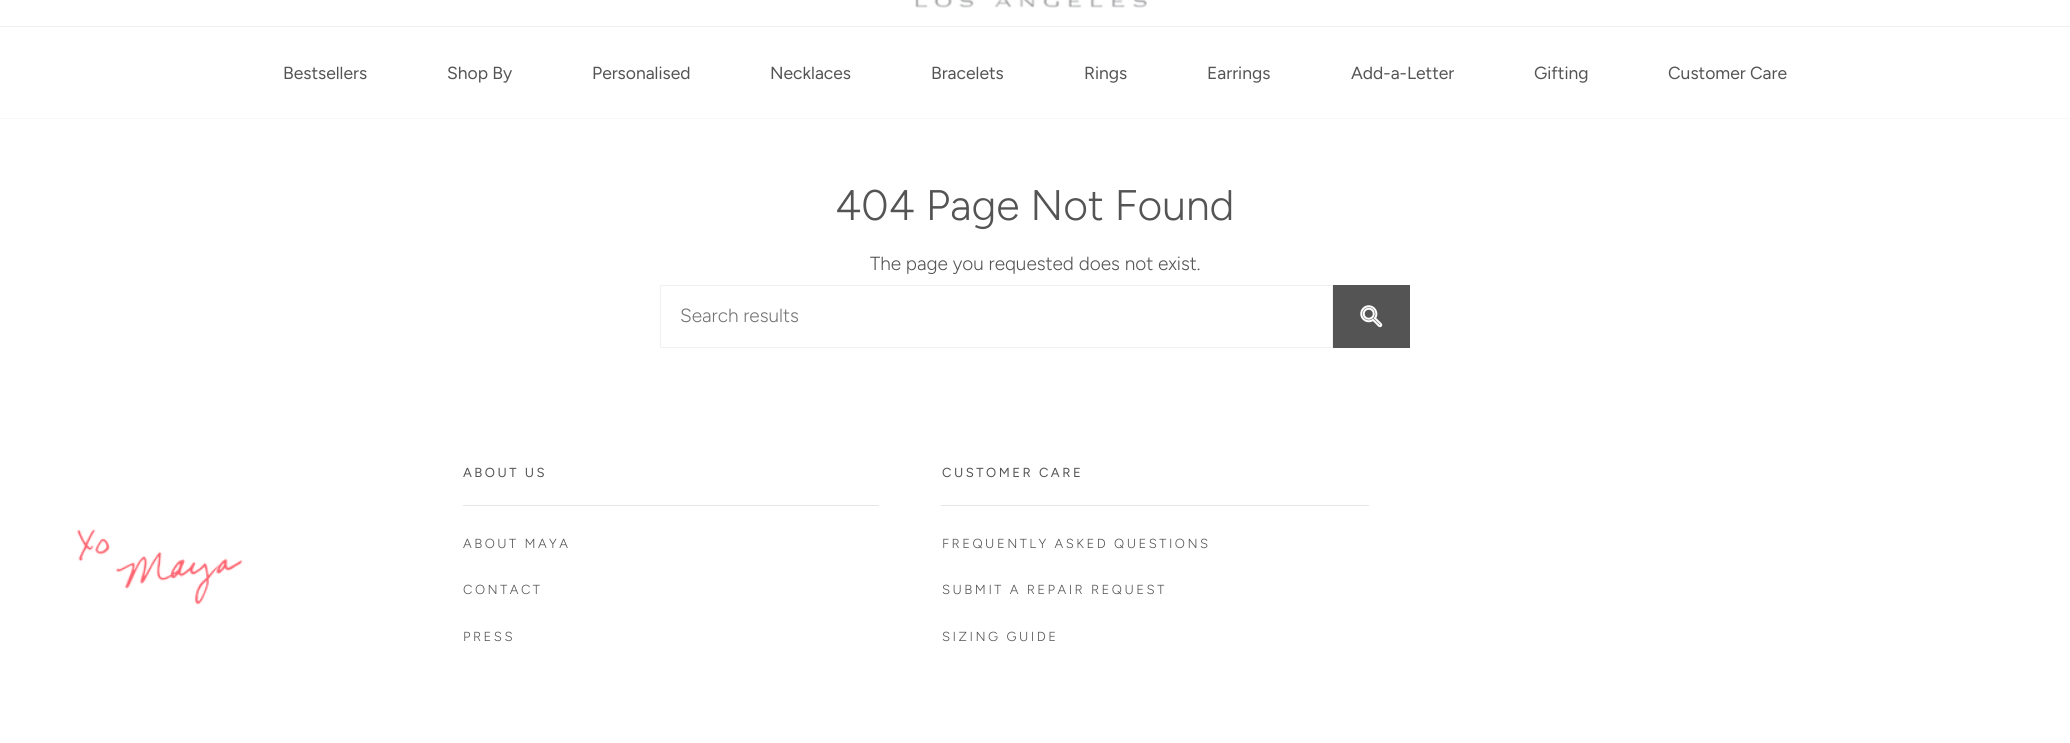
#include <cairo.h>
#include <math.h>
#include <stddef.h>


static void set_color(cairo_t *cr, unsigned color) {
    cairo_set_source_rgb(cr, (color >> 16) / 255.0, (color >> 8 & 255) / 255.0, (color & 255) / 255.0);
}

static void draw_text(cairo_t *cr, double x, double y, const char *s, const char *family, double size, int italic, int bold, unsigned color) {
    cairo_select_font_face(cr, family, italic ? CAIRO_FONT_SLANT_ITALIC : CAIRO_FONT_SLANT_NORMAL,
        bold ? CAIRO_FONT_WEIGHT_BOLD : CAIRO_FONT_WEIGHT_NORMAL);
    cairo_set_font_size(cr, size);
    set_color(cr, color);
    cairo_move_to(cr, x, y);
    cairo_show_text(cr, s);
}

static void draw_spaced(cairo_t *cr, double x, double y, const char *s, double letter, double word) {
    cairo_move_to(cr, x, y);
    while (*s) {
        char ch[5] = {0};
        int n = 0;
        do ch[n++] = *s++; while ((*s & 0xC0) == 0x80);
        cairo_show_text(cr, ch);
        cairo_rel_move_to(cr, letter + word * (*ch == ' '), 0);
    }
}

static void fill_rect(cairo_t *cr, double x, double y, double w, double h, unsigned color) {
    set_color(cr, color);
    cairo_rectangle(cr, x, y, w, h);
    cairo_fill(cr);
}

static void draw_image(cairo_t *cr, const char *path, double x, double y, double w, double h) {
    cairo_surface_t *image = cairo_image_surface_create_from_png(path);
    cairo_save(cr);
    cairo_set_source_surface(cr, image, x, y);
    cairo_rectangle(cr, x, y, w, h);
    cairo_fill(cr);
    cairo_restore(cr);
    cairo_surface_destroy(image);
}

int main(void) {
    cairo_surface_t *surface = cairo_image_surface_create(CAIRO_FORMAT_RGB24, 2070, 743);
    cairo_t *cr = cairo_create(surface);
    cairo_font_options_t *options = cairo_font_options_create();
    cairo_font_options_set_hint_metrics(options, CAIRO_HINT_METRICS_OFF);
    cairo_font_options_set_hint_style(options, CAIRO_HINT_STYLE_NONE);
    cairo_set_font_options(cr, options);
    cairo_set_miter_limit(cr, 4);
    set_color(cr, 0xFFFFFF);
    cairo_paint(cr);
    draw_image(cr, "assets/img1.png", 915, 0, 232, 8);
    fill_rect(cr, 0, 26, 2070, 1, 0xF0F0F0);
    draw_text(cr, 283, 79, "Bestsellers", "Figtree", 17.5, 0, 0, 0x545454);
    draw_text(cr, 447, 79, "Shop By", "Figtree", 17.5, 0, 0, 0x545454);
    draw_text(cr, 592, 79, "Personalised", "Figtree", 17.5, 0, 0, 0x545454);
    draw_text(cr, 770, 79, "Necklaces", "Figtree", 17.5, 0, 0, 0x545454);
    draw_text(cr, 931, 79, "Bracelets", "Figtree", 17.5, 0, 0, 0x545454);
    draw_text(cr, 1084, 79, "Rings", "Figtree", 17.5, 0, 0, 0x545454);
    draw_text(cr, 1207, 79, "Earrings", "Figtree", 17.5, 0, 0, 0x545454);
    draw_text(cr, 1351, 79, "Add-a-Letter", "Figtree", 17.5, 0, 0, 0x545454);
    draw_text(cr, 1534, 79, "Gifting", "Figtree", 17.5, 0, 0, 0x545454);
    draw_text(cr, 1668, 79, "Customer Care", "Figtree", 17.5, 0, 0, 0x545454);
    fill_rect(cr, 0, 118, 2070, 1, 0xF8F8F8);
    draw_text(cr, 835, 220, "404 Page Not Found", "Figtree Light", 42.75, 0, 0, 0x545454);
    draw_text(cr, 870, 270, "The page you requested does not exist.", "Figtree Light", 19, 0, 0, 0x545454);
    cairo_rectangle(cr, 660.5, 285.5, 672, 62);
    set_color(cr, 0xF0F0F0);
    cairo_set_line_width(cr, 1);
    cairo_stroke(cr);
    draw_text(cr, 680, 322, "Search results", "Figtree Light", 19, 0, 0, 0x757575);
    fill_rect(cr, 1333, 285, 77, 63, 0x545454);
    draw_image(cr, "assets/img2.png", 1360, 305, 23, 23);
    draw_image(cr, "assets/img3.png", 77, 529, 166, 76);
    fill_rect(cr, 463, 505, 416, 1, 0xE6E6E6);
    cairo_select_font_face(cr, "Figtree", CAIRO_FONT_SLANT_NORMAL, CAIRO_FONT_WEIGHT_NORMAL);
    cairo_set_font_size(cr, 13.1);
    set_color(cr, 0x545454);
    draw_spaced(cr, 463, 477, "ABOUT US", 2.5, 0);
    cairo_select_font_face(cr, "Figtree Light", CAIRO_FONT_SLANT_NORMAL, CAIRO_FONT_WEIGHT_NORMAL);
    draw_spaced(cr, 463, 548, "ABOUT MAYA", 2.5, 0);
    draw_spaced(cr, 463, 594, "CONTACT", 2.5, 0);
    draw_spaced(cr, 463, 641, "PRESS", 2.5, 0);
    fill_rect(cr, 941, 505, 428, 1, 0xE6E6E6);
    cairo_select_font_face(cr, "Figtree", CAIRO_FONT_SLANT_NORMAL, CAIRO_FONT_WEIGHT_NORMAL);
    set_color(cr, 0x545454);
    draw_spaced(cr, 942, 477, "CUSTOMER CARE", 2.5, 0);
    cairo_select_font_face(cr, "Figtree Light", CAIRO_FONT_SLANT_NORMAL, CAIRO_FONT_WEIGHT_NORMAL);
    draw_spaced(cr, 942, 548, "FREQUENTLY ASKED QUESTIONS", 2.5, 0);
    draw_spaced(cr, 942, 594, "SUBMIT A REPAIR REQUEST", 2.5, 0);
    draw_spaced(cr, 942, 641, "SIZING GUIDE", 2.5, 0);
    cairo_surface_write_to_png(surface, "output.png");
    cairo_font_options_destroy(options);
    cairo_destroy(cr);
    cairo_surface_destroy(surface);
    return 0;
}
